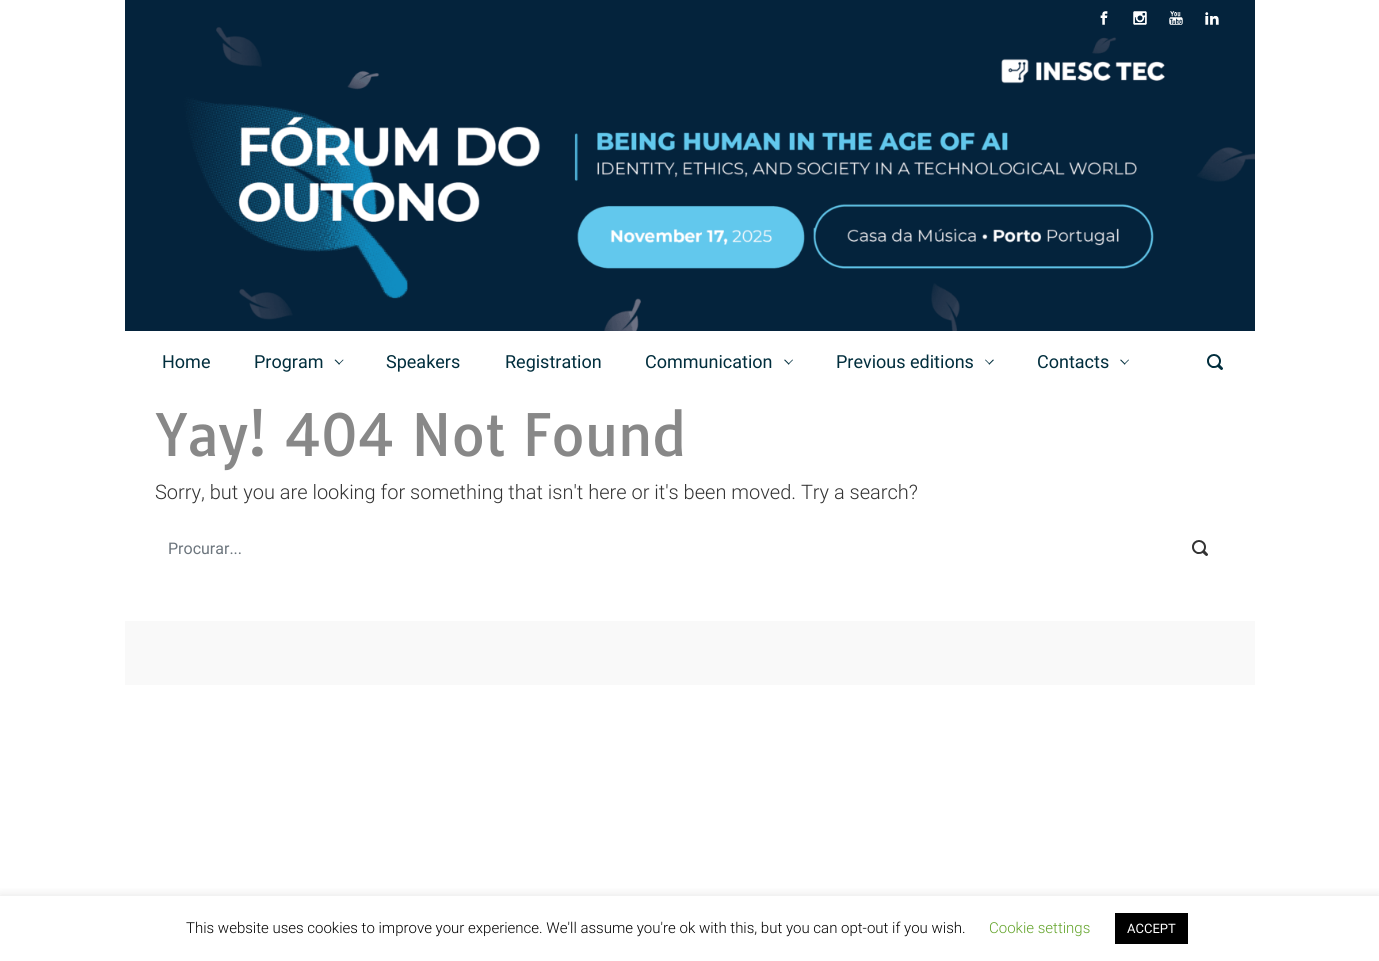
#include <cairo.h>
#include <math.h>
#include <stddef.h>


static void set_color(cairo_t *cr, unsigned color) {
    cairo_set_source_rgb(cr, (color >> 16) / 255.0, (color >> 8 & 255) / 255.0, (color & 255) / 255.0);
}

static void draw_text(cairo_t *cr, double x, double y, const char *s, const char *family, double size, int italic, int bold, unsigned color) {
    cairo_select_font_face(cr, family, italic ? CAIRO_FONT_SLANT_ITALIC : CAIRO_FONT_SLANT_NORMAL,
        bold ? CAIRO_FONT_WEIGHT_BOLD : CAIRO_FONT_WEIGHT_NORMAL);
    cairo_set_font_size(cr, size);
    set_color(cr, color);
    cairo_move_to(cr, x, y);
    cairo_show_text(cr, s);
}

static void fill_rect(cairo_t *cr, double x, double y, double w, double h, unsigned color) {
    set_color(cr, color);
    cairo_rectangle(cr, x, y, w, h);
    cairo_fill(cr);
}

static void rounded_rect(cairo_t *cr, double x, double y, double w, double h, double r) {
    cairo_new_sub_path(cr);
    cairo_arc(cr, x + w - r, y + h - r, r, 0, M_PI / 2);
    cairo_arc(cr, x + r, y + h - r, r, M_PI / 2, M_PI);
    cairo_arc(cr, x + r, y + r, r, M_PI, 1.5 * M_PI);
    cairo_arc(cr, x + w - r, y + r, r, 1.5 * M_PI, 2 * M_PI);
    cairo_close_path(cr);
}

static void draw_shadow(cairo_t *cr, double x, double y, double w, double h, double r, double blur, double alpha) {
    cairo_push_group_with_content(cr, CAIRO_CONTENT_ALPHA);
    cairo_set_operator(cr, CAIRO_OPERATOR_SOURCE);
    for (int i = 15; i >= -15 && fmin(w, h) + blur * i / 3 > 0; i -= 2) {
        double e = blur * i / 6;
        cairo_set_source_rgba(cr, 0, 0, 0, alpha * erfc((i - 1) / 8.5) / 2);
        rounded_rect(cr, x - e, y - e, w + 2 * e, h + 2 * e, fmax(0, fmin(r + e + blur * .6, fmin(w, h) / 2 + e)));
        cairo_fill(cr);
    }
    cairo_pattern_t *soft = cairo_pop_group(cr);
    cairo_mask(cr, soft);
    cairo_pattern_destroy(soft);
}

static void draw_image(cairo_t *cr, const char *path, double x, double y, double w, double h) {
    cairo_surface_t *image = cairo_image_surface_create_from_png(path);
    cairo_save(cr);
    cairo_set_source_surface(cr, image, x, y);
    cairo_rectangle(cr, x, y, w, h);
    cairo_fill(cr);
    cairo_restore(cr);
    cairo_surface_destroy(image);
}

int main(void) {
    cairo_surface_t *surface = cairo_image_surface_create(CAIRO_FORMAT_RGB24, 1379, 961);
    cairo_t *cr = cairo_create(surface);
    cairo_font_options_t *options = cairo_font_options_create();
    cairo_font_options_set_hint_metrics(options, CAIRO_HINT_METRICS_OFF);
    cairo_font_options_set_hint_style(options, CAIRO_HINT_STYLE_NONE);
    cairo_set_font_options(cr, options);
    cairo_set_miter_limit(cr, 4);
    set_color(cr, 0xFFFFFF);
    cairo_paint(cr);
    fill_rect(cr, 125, 621, 1130, 64, 0xF9F9F9);
    draw_image(cr, "assets/img1.png", 125, 0, 1130, 331);
    draw_image(cr, "assets/img2.png", 1100, 11, 8, 14);
    draw_image(cr, "assets/img3.png", 1133, 11, 14, 14);
    draw_image(cr, "assets/img4.png", 1169, 11, 14, 14);
    draw_image(cr, "assets/img5.png", 1205, 12, 14, 13);
    draw_text(cr, 162, 368, "Home", "Roboto", 18, 0, 0, 0x012E3D);
    draw_text(cr, 254, 368, "Program", "Roboto", 18, 0, 0, 0x012E3D);
    cairo_new_path(cr);
    cairo_move_to(cr, 343, 359.5);
    cairo_line_to(cr, 343.5, 360);
    cairo_line_to(cr, 339, 364.5);
    cairo_line_to(cr, 338.5, 364);
    cairo_close_path(cr);
    cairo_fill(cr);
    cairo_new_path(cr);
    cairo_move_to(cr, 335.5, 359.5);
    cairo_line_to(cr, 340, 364);
    cairo_line_to(cr, 339, 364.5);
    cairo_line_to(cr, 334.5, 360);
    cairo_close_path(cr);
    cairo_fill(cr);
    draw_text(cr, 386, 368, "Speakers", "Roboto", 18, 0, 0, 0x012E3D);
    draw_text(cr, 505, 368, "Registration", "Roboto", 18, 0, 0, 0x012E3D);
    draw_text(cr, 645, 368, "Communication", "Roboto", 18, 0, 0, 0x012E3D);
    cairo_new_path(cr);
    cairo_move_to(cr, 792.5, 359.5);
    cairo_line_to(cr, 793, 360);
    cairo_line_to(cr, 788.5, 364.5);
    cairo_line_to(cr, 788, 364);
    cairo_close_path(cr);
    cairo_fill(cr);
    cairo_new_path(cr);
    cairo_move_to(cr, 785, 359.5);
    cairo_line_to(cr, 789.5, 364);
    cairo_line_to(cr, 788.5, 364.5);
    cairo_line_to(cr, 784, 360);
    cairo_close_path(cr);
    cairo_fill(cr);
    draw_text(cr, 836, 368, "Previous editions", "Roboto", 18, 0, 0, 0x012E3D);
    cairo_new_path(cr);
    cairo_move_to(cr, 993, 359.5);
    cairo_line_to(cr, 994, 360);
    cairo_line_to(cr, 989.5, 364.5);
    cairo_line_to(cr, 988.5, 364);
    cairo_close_path(cr);
    cairo_fill(cr);
    cairo_new_path(cr);
    cairo_move_to(cr, 985.5, 359.5);
    cairo_line_to(cr, 990, 364);
    cairo_line_to(cr, 989.5, 364.5);
    cairo_line_to(cr, 985, 360);
    cairo_close_path(cr);
    cairo_fill(cr);
    draw_text(cr, 1037, 368, "Contacts", "Roboto", 18, 0, 0, 0x012E3D);
    cairo_new_path(cr);
    cairo_move_to(cr, 1128.5, 359.5);
    cairo_line_to(cr, 1129, 360);
    cairo_line_to(cr, 1124.5, 364.5);
    cairo_line_to(cr, 1124, 364);
    cairo_close_path(cr);
    cairo_fill(cr);
    cairo_new_path(cr);
    cairo_move_to(cr, 1121, 359.5);
    cairo_line_to(cr, 1125.5, 364);
    cairo_line_to(cr, 1124.5, 364.5);
    cairo_line_to(cr, 1120, 360);
    cairo_close_path(cr);
    cairo_fill(cr);
    draw_image(cr, "assets/img6.png", 1207, 354, 16, 16);
    draw_text(cr, 155, 456, "Yay! 404 Not Found", "Tauri", 56, 0, 0, 0x888888);
    draw_text(cr, 155, 499, "Sorry, but you are looking for something that isn't here or it's been moved. Try a search?", "Roboto Light", 20, 0, 0, 0x333333);
    draw_text(cr, 168, 554, "Procurar...", "Roboto", 16, 0, 0, 0x6C757D);
    draw_image(cr, "assets/img7.png", 1192, 540, 16, 16);
    cairo_save(cr);
    cairo_rectangle(cr, 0, 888, 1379, 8);
    cairo_clip(cr);
    set_color(cr, 0xACABAB);
    draw_shadow(cr, 0, 895, 1379, 65, 0, 5, 0.3);
    cairo_restore(cr);
    draw_text(cr, 186, 933, "This website uses cookies to improve your experience. We'll assume you're ok with this, but you can opt-out if you wish.", "Roboto Light", 15, 0, 0, 0x000000);
    draw_text(cr, 989, 933, "Cookie settings", "Roboto Light", 15, 0, 0, 0x62A329);
    fill_rect(cr, 1115, 913, 73, 31, 0x000000);
    draw_text(cr, 1127, 933, "ACCEPT", "Roboto", 13, 0, 0, 0xFFFFFF);
    cairo_surface_write_to_png(surface, "output.png");
    cairo_font_options_destroy(options);
    cairo_destroy(cr);
    cairo_surface_destroy(surface);
    return 0;
}
